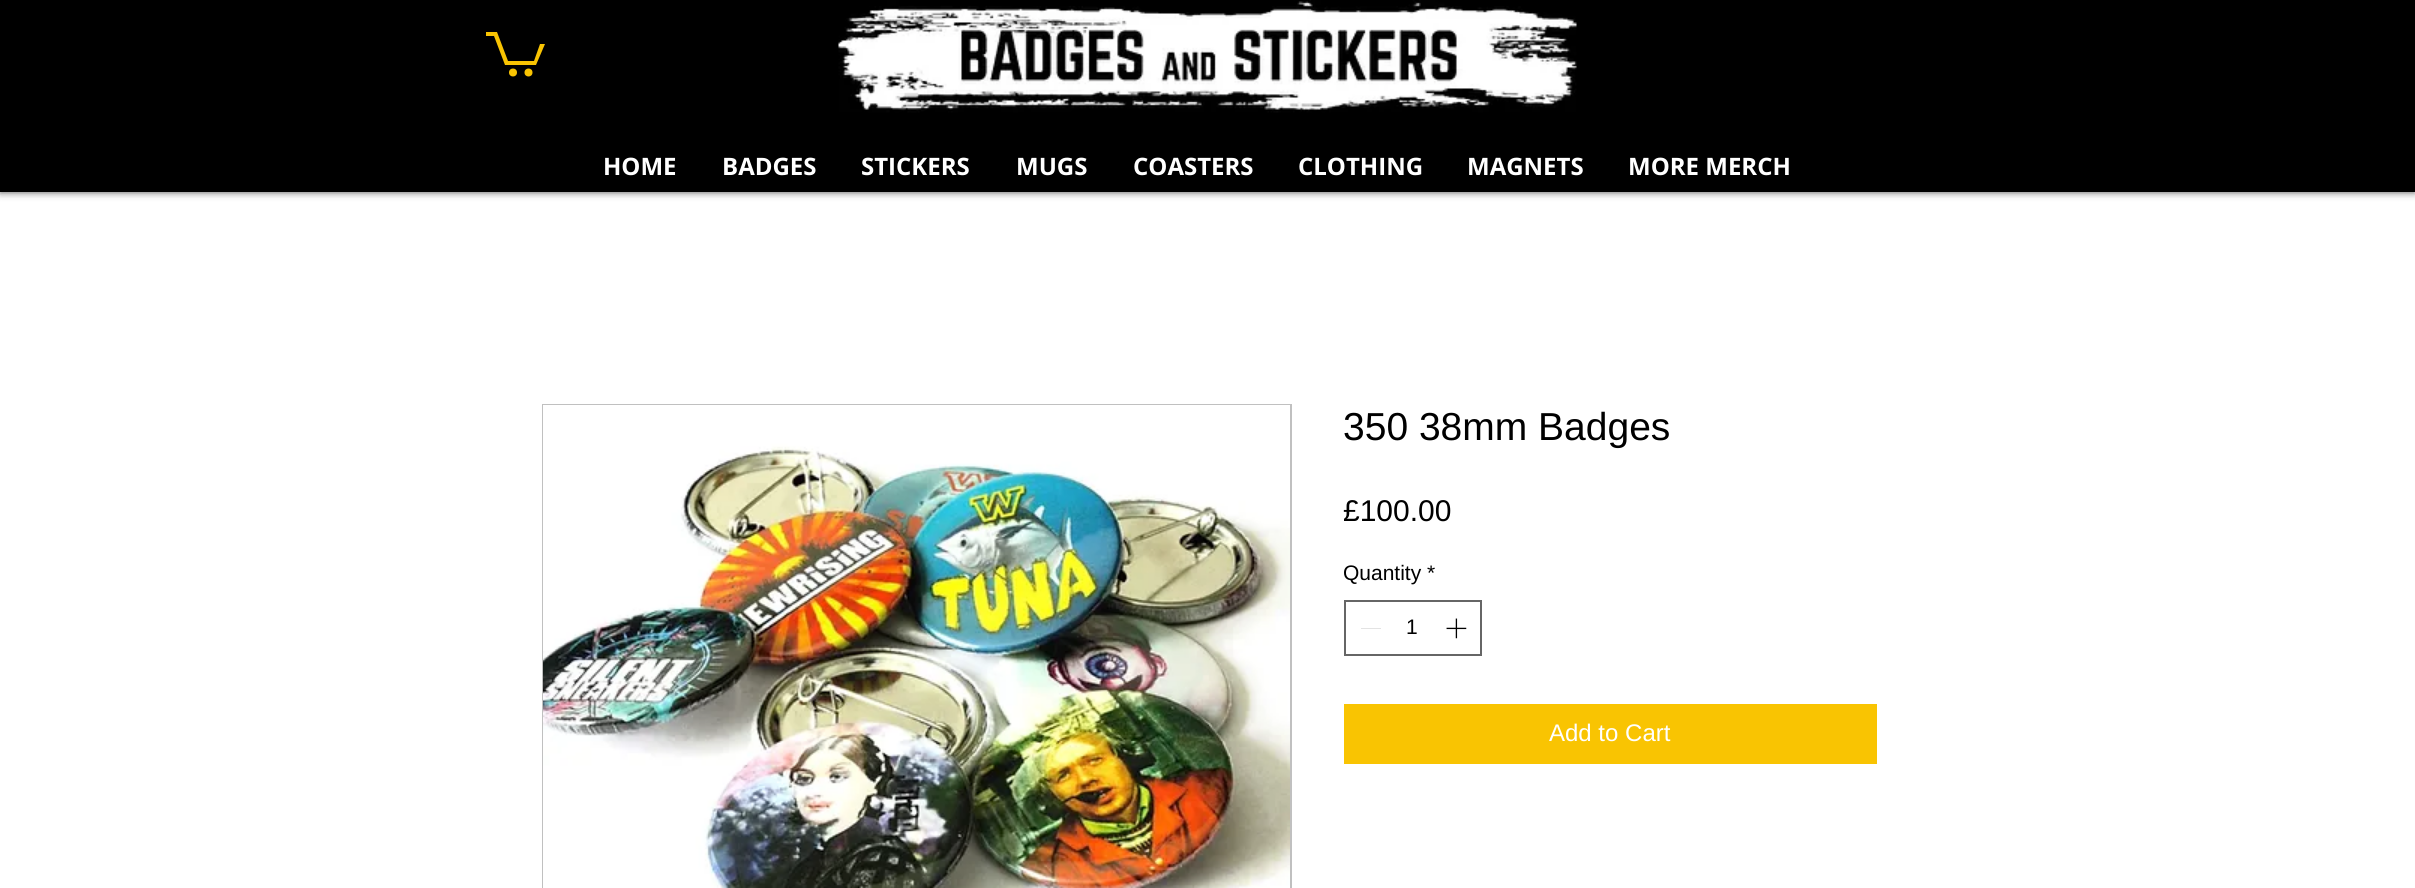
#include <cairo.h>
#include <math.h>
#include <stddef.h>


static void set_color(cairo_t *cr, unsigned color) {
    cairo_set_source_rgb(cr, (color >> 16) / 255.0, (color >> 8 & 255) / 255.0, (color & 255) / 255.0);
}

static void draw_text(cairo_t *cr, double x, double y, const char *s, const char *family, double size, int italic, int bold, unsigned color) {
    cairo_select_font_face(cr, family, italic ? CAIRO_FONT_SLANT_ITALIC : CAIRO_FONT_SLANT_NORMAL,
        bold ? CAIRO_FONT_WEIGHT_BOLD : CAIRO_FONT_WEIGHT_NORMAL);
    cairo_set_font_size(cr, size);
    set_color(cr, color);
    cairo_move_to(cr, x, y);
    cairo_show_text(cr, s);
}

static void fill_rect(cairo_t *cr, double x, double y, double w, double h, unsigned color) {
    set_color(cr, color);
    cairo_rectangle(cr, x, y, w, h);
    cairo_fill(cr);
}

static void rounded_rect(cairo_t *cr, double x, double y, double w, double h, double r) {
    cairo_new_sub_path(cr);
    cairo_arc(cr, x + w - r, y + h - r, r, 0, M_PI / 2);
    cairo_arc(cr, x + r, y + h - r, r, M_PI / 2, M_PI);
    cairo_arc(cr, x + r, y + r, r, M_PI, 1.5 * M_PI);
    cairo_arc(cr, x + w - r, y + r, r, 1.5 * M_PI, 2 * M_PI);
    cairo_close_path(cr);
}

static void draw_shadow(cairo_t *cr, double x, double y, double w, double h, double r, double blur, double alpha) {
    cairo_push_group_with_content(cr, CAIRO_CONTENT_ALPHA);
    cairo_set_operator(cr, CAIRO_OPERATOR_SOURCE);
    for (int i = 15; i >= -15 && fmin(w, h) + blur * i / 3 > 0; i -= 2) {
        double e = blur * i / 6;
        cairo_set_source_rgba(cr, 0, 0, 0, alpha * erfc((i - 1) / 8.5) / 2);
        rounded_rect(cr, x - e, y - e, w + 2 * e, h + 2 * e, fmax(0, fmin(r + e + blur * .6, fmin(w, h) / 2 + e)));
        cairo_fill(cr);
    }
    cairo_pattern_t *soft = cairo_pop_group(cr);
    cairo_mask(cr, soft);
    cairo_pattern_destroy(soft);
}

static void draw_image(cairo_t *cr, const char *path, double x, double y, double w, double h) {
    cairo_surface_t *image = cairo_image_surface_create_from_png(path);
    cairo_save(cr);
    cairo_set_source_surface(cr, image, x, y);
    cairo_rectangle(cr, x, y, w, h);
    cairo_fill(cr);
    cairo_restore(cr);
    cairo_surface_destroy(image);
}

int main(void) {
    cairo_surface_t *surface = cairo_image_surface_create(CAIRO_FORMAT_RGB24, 2415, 888);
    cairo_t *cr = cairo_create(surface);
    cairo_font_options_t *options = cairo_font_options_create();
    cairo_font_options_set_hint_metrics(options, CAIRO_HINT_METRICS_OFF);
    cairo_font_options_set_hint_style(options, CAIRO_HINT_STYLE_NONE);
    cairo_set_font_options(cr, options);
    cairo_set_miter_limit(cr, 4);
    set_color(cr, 0xFFFFFF);
    cairo_paint(cr);
    set_color(cr, 0x000000);
    draw_shadow(cr, 0, 0, 2415, 192, 0, 4, 0.7);
    fill_rect(cr, 0, 0, 2415, 192, 0x000000);
    set_color(cr, 0xF9C402);
    cairo_new_path(cr);
    cairo_move_to(cr, 545, 44);
    cairo_line_to(cr, 536, 65);
    cairo_line_to(cr, 505, 65);
    cairo_line_to(cr, 494, 36);
    cairo_line_to(cr, 486, 36);
    cairo_line_to(cr, 486, 32);
    cairo_line_to(cr, 497, 32);
    cairo_line_to(cr, 508, 61);
    cairo_line_to(cr, 534, 61);
    cairo_line_to(cr, 540, 44);
    cairo_fill(cr);
    cairo_arc(cr, 528.5, 72.5, 4, 0, 2 * M_PI);
    cairo_fill(cr);
    cairo_arc(cr, 513, 72.5, 4, 0, 2 * M_PI);
    cairo_fill(cr);
    draw_image(cr, "assets/img1.png", 838, 0, 739, 113);
    draw_text(cr, 603, 175, "HOME", "Open Sans", 24, 0, 1, 0xFFFFFF);
    draw_text(cr, 722, 175, "BADGES", "Open Sans", 24, 0, 1, 0xFFFFFF);
    draw_text(cr, 861, 175, "STICKERS", "Open Sans", 24, 0, 1, 0xFFFFFF);
    draw_text(cr, 1016, 175, "MUGS", "Open Sans", 24, 0, 1, 0xFFFFFF);
    draw_text(cr, 1133, 175, "COASTERS", "Open Sans", 24, 0, 1, 0xFFFFFF);
    draw_text(cr, 1298, 175, "CLOTHING", "Open Sans", 24, 0, 1, 0xFFFFFF);
    draw_text(cr, 1467, 175, "MAGNETS", "Open Sans", 24, 0, 1, 0xFFFFFF);
    draw_text(cr, 1628, 175, "MORE MERCH", "Open Sans", 24, 0, 1, 0xFFFFFF);
    cairo_rectangle(cr, 543, 405, 748, 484);
    set_color(cr, 0xC0C0C0);
    cairo_stroke(cr);
    draw_image(cr, "assets/img2.png", 543, 405, 747, 483);
    draw_text(cr, 1343, 440, "350 38mm Badges", "Liberation Sans", 39, 0, 0, 0x000000);
    draw_text(cr, 1343, 521, "£100.00", "Liberation Sans", 30, 0, 0, 0x000000);
    draw_text(cr, 1343, 580, "Quantity *", "Liberation Sans", 21, 0, 0, 0x000000);
    cairo_rectangle(cr, 1345, 601, 136, 54);
    set_color(cr, 0x666666);
    cairo_stroke(cr);
    fill_rect(cr, 1361, 628, 20, 1, 0xE3E3E3);
    draw_text(cr, 1406, 634, "1", "Liberation Sans", 21, 0, 0, 0x000000);
    draw_image(cr, "assets/img3.png", 1446, 618, 21, 21);
    fill_rect(cr, 1344, 704, 533, 60, 0xF9C402);
    draw_text(cr, 1549, 741, "Add to Cart", "Liberation Sans", 24, 0, 0, 0xFFFFFF);
    cairo_surface_write_to_png(surface, "output.png");
    cairo_font_options_destroy(options);
    cairo_destroy(cr);
    cairo_surface_destroy(surface);
    return 0;
}
